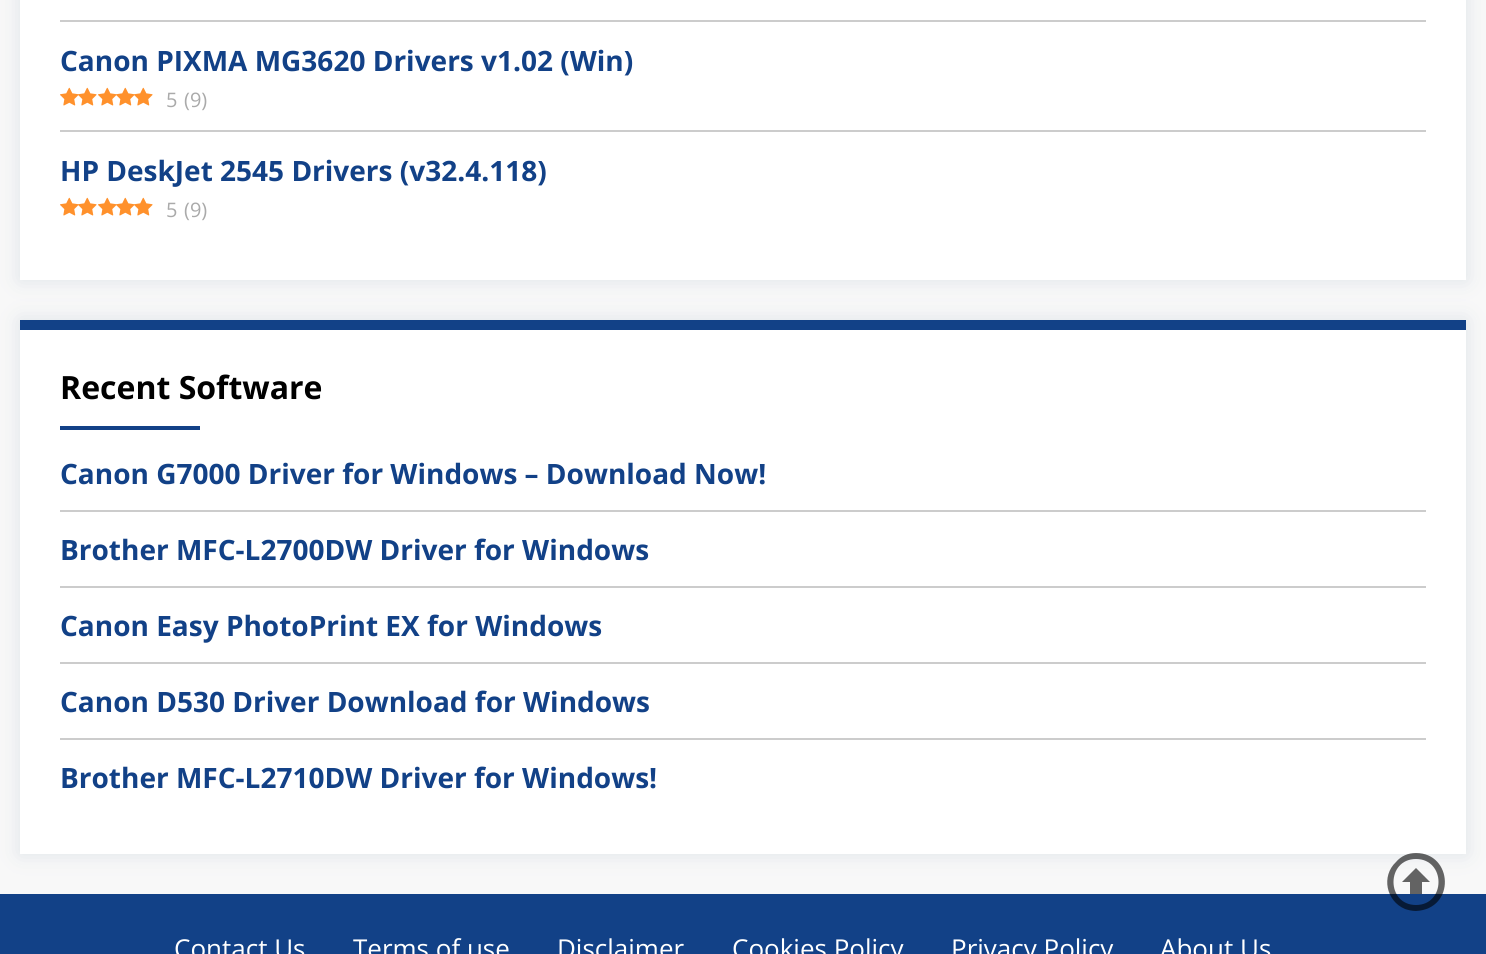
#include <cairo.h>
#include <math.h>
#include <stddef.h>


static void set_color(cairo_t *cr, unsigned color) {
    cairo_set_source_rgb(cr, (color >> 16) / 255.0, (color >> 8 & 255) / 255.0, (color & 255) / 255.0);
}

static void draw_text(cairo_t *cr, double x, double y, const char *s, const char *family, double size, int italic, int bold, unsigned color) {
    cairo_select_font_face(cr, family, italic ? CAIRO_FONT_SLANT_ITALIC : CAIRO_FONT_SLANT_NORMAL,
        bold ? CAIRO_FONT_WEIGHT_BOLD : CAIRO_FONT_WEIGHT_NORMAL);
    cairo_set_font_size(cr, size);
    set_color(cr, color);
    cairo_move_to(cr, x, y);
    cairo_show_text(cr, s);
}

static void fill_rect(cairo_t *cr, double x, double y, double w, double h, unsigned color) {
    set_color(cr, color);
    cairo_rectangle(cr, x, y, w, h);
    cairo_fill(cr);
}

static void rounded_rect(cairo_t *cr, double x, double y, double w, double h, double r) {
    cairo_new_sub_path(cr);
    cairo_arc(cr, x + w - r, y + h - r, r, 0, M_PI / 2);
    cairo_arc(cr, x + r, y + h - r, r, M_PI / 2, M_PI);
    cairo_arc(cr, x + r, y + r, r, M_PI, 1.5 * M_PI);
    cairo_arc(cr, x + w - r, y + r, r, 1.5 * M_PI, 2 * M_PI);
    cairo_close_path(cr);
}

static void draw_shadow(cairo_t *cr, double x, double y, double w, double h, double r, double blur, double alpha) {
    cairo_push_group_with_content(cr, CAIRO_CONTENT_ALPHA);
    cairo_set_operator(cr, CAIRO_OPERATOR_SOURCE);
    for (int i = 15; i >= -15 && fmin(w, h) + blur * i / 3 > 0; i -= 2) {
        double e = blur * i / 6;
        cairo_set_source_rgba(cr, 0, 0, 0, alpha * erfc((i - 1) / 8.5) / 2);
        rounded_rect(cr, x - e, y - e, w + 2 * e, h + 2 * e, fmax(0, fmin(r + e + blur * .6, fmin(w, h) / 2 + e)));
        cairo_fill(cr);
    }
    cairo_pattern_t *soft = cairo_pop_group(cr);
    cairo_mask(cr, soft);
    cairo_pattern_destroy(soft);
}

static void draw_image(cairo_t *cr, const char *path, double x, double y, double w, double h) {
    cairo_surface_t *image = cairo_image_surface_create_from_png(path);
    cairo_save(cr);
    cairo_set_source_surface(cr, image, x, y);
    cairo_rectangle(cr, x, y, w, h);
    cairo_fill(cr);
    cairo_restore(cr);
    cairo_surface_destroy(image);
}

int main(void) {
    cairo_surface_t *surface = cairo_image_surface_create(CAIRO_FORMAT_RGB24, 1486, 954);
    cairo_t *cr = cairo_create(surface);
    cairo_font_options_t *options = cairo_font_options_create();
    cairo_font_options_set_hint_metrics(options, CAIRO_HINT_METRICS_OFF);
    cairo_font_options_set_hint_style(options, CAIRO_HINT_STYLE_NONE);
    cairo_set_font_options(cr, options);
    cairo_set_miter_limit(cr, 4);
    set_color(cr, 0xF8F8F8);
    cairo_paint(cr);
    set_color(cr, 0xD6DEE4);
    draw_shadow(cr, 20, -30, 1446, 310, 0, 10, 0.8);
    fill_rect(cr, 20, 0, 1446, 280, 0xFFFFFF);
    fill_rect(cr, 60, 20, 1366, 2, 0xCCCCCC);
    fill_rect(cr, 60, 130, 1366, 2, 0xCCCCCC);
    draw_text(cr, 60, 71, "Canon PIXMA MG3620 Drivers v1.02 (Win)", "Open Sans", 28, 0, 1, 0x124187);
    draw_image(cr, "assets/img1.png", 60, 87, 19, 19);
    draw_image(cr, "assets/img2.png", 78, 87, 19, 19);
    draw_image(cr, "assets/img1.png", 98, 87, 19, 19);
    draw_image(cr, "assets/img2.png", 116, 87, 19, 19);
    draw_image(cr, "assets/img2.png", 134, 87, 19, 19);
    draw_text(cr, 166, 107, "5", "Open Sans", 20, 0, 0, 0xAAAAAA);
    draw_text(cr, 184, 107, "(9)", "Open Sans", 20, 0, 0, 0xAAAAAA);
    draw_text(cr, 60, 181, "HP DeskJet 2545 Drivers (v32.4.118)", "Open Sans", 28, 0, 1, 0x124187);
    draw_image(cr, "assets/img1.png", 60, 197, 19, 19);
    draw_image(cr, "assets/img2.png", 78, 197, 19, 19);
    draw_image(cr, "assets/img1.png", 98, 197, 19, 19);
    draw_image(cr, "assets/img2.png", 116, 197, 19, 19);
    draw_image(cr, "assets/img2.png", 134, 197, 19, 19);
    draw_text(cr, 166, 217, "5", "Open Sans", 20, 0, 0, 0xAAAAAA);
    draw_text(cr, 184, 217, "(9)", "Open Sans", 20, 0, 0, 0xAAAAAA);
    set_color(cr, 0xD6DEE4);
    draw_shadow(cr, 20, 320, 1446, 534, 0, 10, 0.8);
    fill_rect(cr, 20, 330, 1446, 524, 0xFFFFFF);
    fill_rect(cr, 20, 320, 1446, 10, 0x124187);
    draw_text(cr, 60, 399, "Recent Software", "Open Sans", 32, 0, 1, 0x000000);
    fill_rect(cr, 60, 426, 140, 4, 0x124187);
    fill_rect(cr, 60, 510, 1366, 2, 0xCCCCCC);
    draw_text(cr, 60, 484, "Canon G7000 Driver for Windows – Download Now!", "Open Sans", 28, 0, 1, 0x124187);
    fill_rect(cr, 60, 586, 1366, 2, 0xCCCCCC);
    draw_text(cr, 60, 560, "Brother MFC-L2700DW Driver for Windows", "Open Sans", 28, 0, 1, 0x124187);
    fill_rect(cr, 60, 662, 1366, 2, 0xCCCCCC);
    draw_text(cr, 60, 636, "Canon Easy PhotoPrint EX for Windows", "Open Sans", 28, 0, 1, 0x124187);
    fill_rect(cr, 60, 738, 1366, 2, 0xCCCCCC);
    draw_text(cr, 60, 712, "Canon D530 Driver Download for Windows", "Open Sans", 28, 0, 1, 0x124187);
    draw_text(cr, 60, 788, "Brother MFC-L2710DW Driver for Windows!", "Open Sans", 28, 0, 1, 0x124187);
    fill_rect(cr, 0, 894, 1486, 60, 0x124187);
    cairo_set_source_rgba(cr, 0, 0, 0, 0.6);
    cairo_new_path(cr);
    cairo_move_to(cr, 1416, 853);
    cairo_curve_to(cr, 1408, 853, 1401, 856, 1396, 862);
    cairo_curve_to(cr, 1381, 876, 1386, 901, 1405, 909);
    cairo_curve_to(cr, 1408, 910, 1412, 911, 1416, 911);
    cairo_curve_to(cr, 1456, 909, 1453, 853, 1416, 853);
    cairo_close_path(cr);
    cairo_move_to(cr, 1416, 905);
    cairo_curve_to(cr, 1386, 905, 1386, 859, 1416, 859);
    cairo_curve_to(cr, 1446, 859, 1446, 905, 1416, 905);
    cairo_close_path(cr);
    cairo_move_to(cr, 1416, 868);
    cairo_line_to(cr, 1430, 882);
    cairo_line_to(cr, 1422, 882);
    cairo_line_to(cr, 1422, 894);
    cairo_line_to(cr, 1410, 894);
    cairo_line_to(cr, 1410, 882);
    cairo_line_to(cr, 1402, 882);
    cairo_close_path(cr);
    cairo_fill(cr);
    draw_text(cr, 174, 958, "Contact Us", "Open Sans", 26, 0, 0, 0xFFFFFF);
    draw_text(cr, 353, 958, "Terms of use", "Open Sans", 26, 0, 0, 0xFFFFFF);
    draw_text(cr, 557, 958, "Disclaimer", "Open Sans", 26, 0, 0, 0xFFFFFF);
    draw_text(cr, 732, 958, "Cookies Policy", "Open Sans", 26, 0, 0, 0xFFFFFF);
    draw_text(cr, 951, 958, "Privacy Policy", "Open Sans", 26, 0, 0, 0xFFFFFF);
    draw_text(cr, 1160, 958, "About Us", "Open Sans", 26, 0, 0, 0xFFFFFF);
    cairo_surface_write_to_png(surface, "output.png");
    cairo_font_options_destroy(options);
    cairo_destroy(cr);
    cairo_surface_destroy(surface);
    return 0;
}
